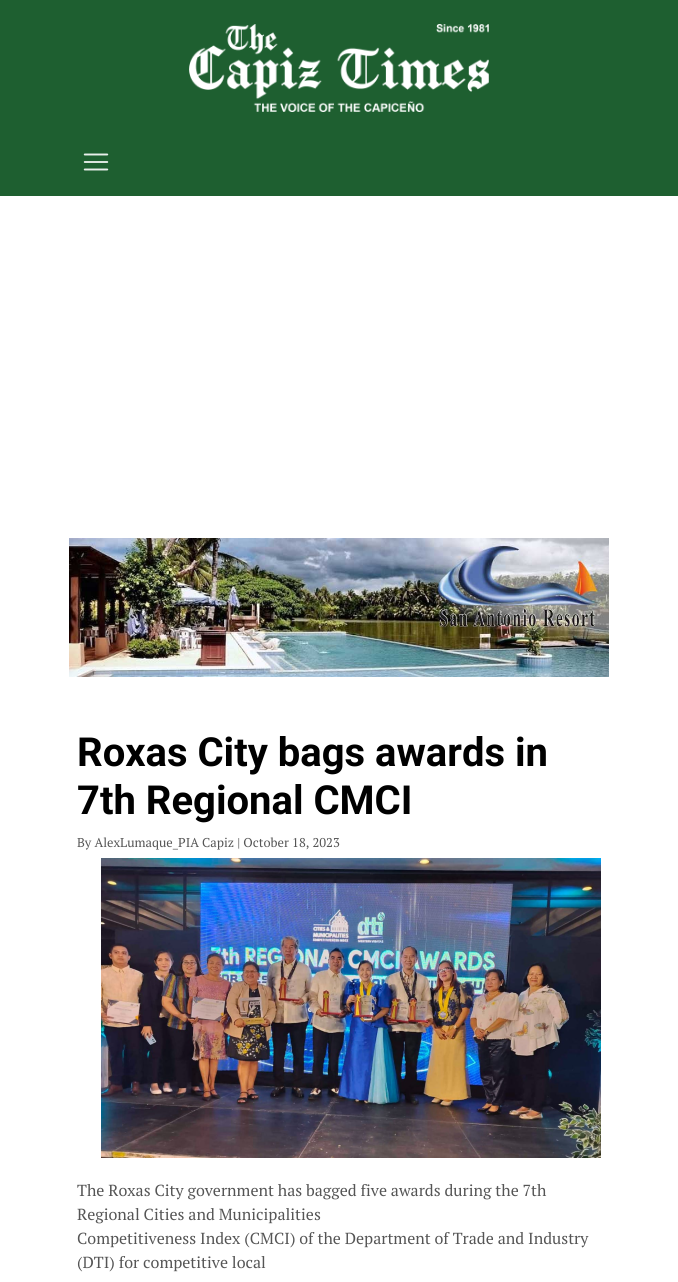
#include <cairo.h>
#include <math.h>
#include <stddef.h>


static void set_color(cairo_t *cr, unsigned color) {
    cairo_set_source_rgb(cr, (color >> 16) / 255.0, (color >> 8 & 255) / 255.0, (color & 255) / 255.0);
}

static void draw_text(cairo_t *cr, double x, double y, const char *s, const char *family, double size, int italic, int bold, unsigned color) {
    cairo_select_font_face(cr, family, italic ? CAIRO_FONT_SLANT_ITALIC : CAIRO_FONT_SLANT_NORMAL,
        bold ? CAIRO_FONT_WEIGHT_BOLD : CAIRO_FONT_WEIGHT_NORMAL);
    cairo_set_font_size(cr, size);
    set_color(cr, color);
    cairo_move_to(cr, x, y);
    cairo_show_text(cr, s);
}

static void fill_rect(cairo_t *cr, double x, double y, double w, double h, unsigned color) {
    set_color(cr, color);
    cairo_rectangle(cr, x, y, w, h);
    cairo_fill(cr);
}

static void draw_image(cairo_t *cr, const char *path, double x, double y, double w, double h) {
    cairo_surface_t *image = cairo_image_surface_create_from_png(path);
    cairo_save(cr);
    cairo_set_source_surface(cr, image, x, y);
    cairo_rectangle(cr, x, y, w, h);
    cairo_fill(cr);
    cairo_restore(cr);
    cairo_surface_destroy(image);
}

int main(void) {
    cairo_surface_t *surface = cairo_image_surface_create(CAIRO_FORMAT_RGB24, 678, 1282);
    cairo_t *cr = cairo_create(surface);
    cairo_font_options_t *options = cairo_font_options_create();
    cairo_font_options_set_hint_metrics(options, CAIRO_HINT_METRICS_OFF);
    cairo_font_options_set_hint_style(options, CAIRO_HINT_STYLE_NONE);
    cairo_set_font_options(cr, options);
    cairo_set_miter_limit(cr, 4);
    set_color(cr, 0xFFFFFF);
    cairo_paint(cr);
    fill_rect(cr, 0, 0, 678, 196, 0x1E5F30);
    draw_image(cr, "assets/img1.png", 189, 24, 300, 88);
    draw_image(cr, "assets/img2.png", 83, 153, 26, 18);
    draw_image(cr, "assets/img3.png", 69, 538, 540, 139);
    draw_text(cr, 77, 766, "Roxas City bags awards in", "Roboto", 40, 0, 1, 0x000000);
    draw_text(cr, 77, 814, "7th Regional CMCI", "Roboto", 40, 0, 1, 0x000000);
    draw_text(cr, 77, 847, "By AlexLumaque_PIA Capiz | October 18, 2023", "PT Serif", 12.8, 0, 0, 0x555555);
    draw_image(cr, "assets/img4.png", 101, 858, 500, 300);
    draw_text(cr, 77, 1196, "The Roxas City government has bagged five awards during the 7th", "PT Serif", 16, 0, 0, 0x555555);
    draw_text(cr, 77, 1220, "Regional Cities and Municipalities", "PT Serif", 16, 0, 0, 0x555555);
    draw_text(cr, 77, 1244, "Competitiveness Index (CMCI) of the Department of Trade and Industry", "PT Serif", 16, 0, 0, 0x555555);
    draw_text(cr, 77, 1268, "(DTI) for competitive local", "PT Serif", 16, 0, 0, 0x555555);
    cairo_surface_write_to_png(surface, "output.png");
    cairo_font_options_destroy(options);
    cairo_destroy(cr);
    cairo_surface_destroy(surface);
    return 0;
}
